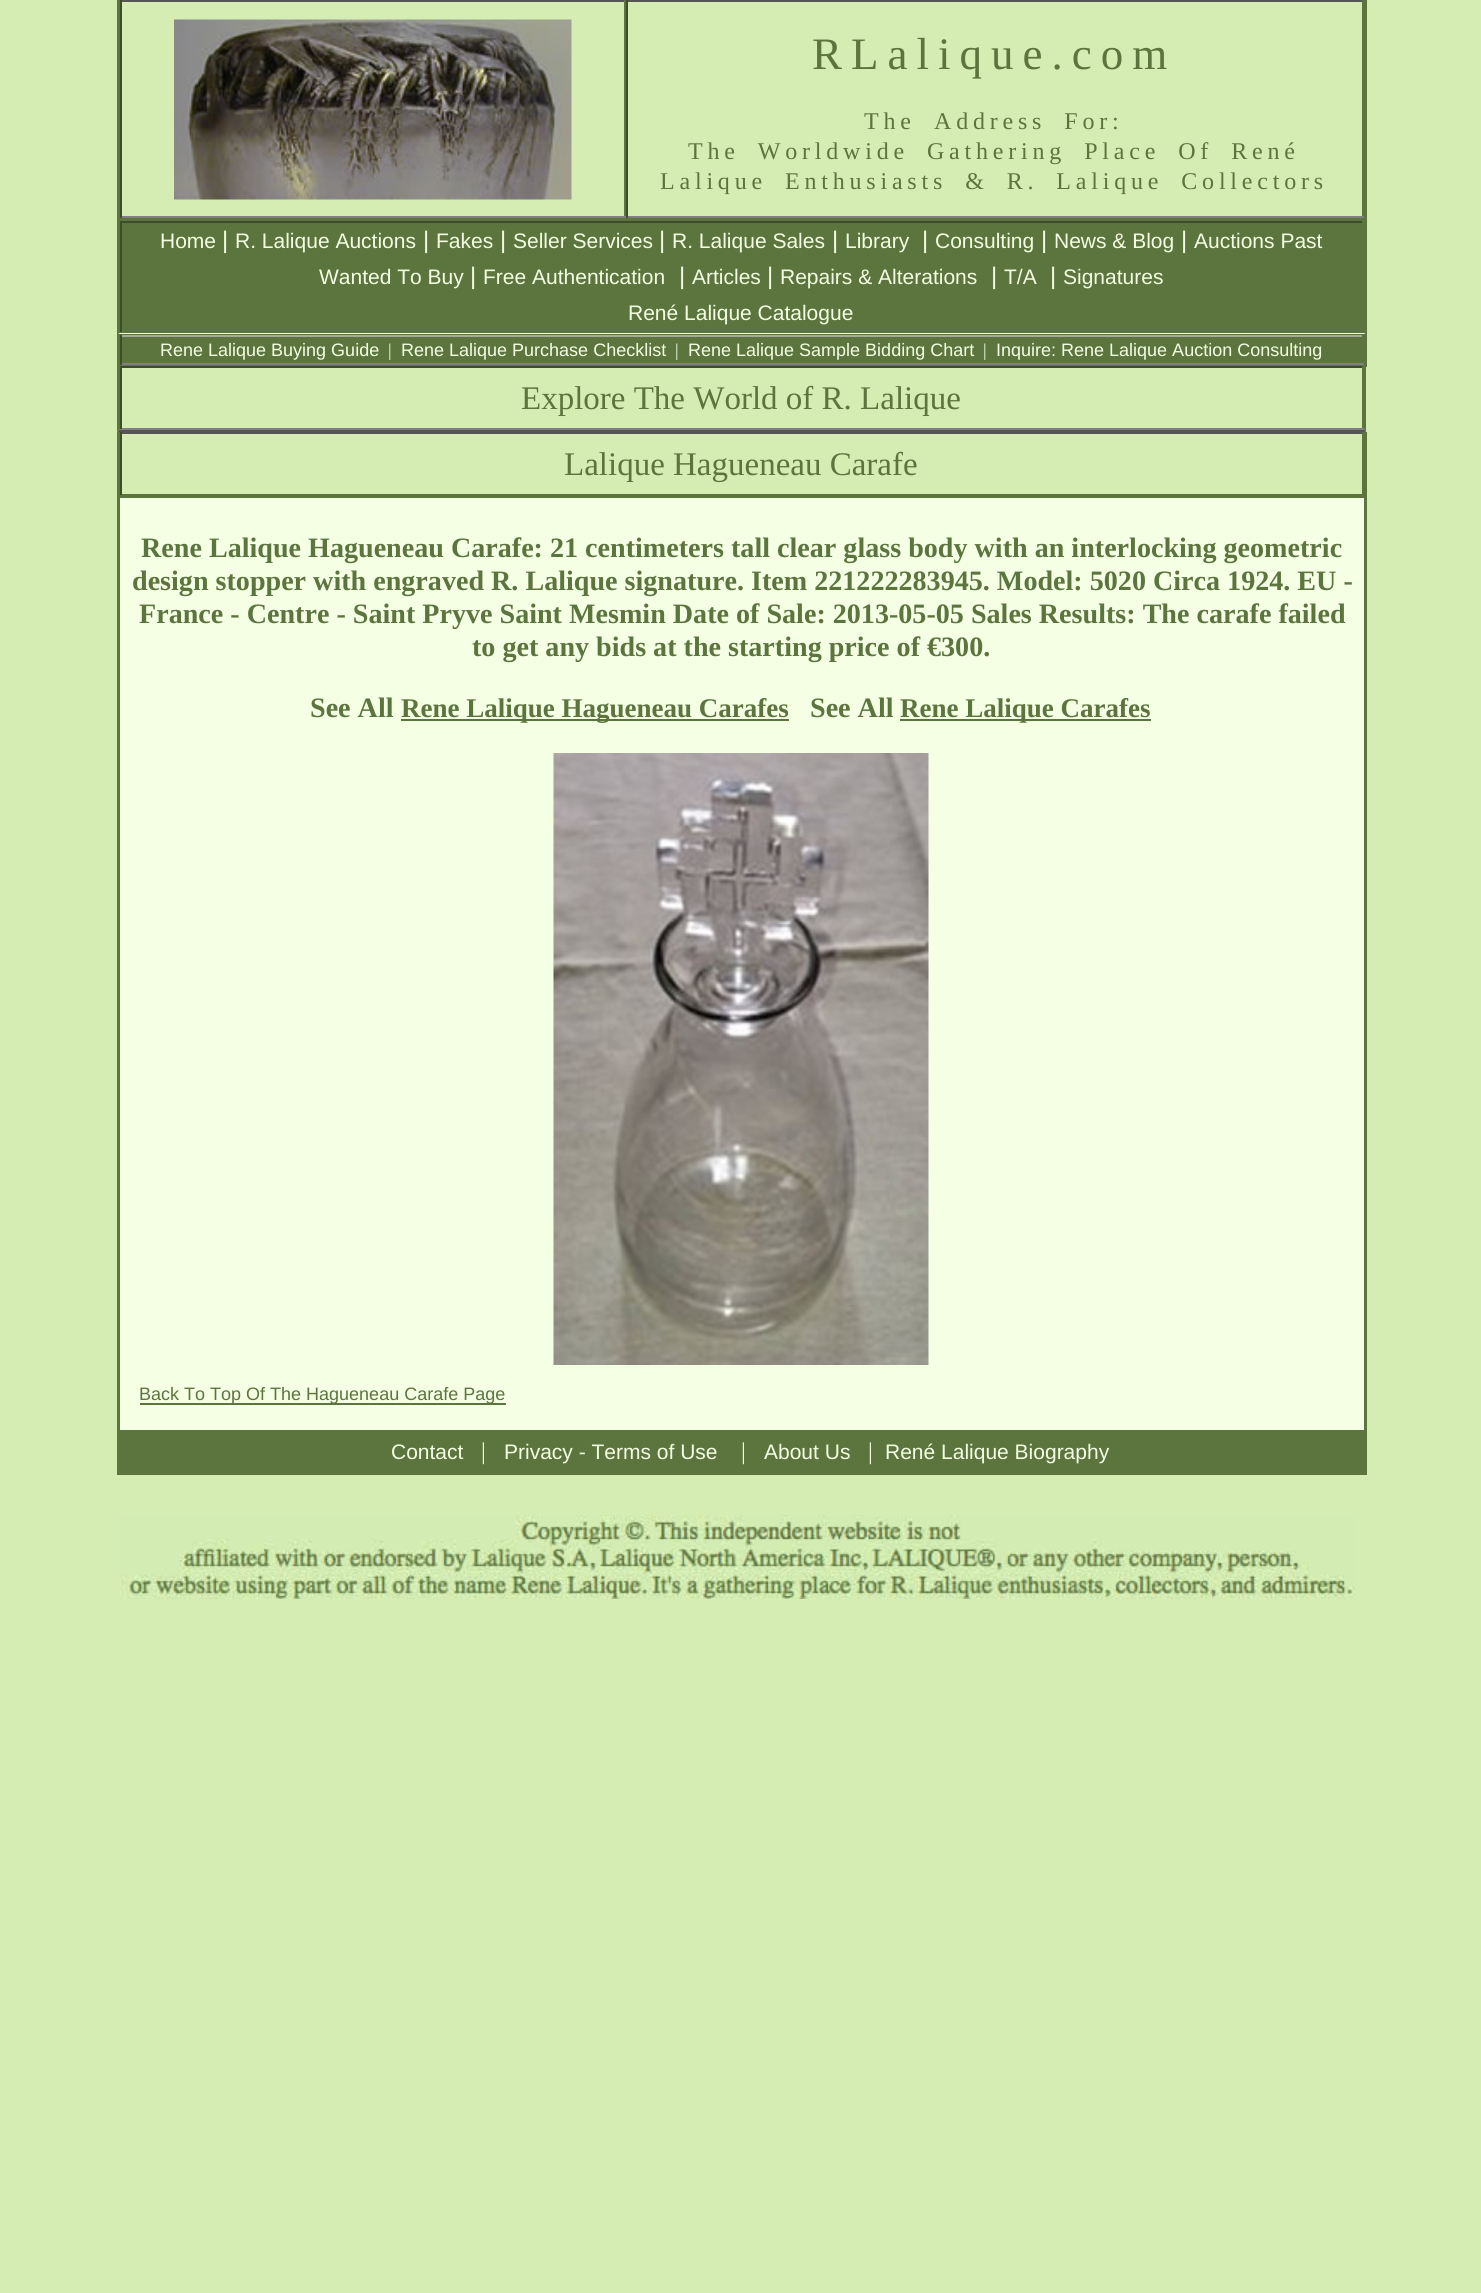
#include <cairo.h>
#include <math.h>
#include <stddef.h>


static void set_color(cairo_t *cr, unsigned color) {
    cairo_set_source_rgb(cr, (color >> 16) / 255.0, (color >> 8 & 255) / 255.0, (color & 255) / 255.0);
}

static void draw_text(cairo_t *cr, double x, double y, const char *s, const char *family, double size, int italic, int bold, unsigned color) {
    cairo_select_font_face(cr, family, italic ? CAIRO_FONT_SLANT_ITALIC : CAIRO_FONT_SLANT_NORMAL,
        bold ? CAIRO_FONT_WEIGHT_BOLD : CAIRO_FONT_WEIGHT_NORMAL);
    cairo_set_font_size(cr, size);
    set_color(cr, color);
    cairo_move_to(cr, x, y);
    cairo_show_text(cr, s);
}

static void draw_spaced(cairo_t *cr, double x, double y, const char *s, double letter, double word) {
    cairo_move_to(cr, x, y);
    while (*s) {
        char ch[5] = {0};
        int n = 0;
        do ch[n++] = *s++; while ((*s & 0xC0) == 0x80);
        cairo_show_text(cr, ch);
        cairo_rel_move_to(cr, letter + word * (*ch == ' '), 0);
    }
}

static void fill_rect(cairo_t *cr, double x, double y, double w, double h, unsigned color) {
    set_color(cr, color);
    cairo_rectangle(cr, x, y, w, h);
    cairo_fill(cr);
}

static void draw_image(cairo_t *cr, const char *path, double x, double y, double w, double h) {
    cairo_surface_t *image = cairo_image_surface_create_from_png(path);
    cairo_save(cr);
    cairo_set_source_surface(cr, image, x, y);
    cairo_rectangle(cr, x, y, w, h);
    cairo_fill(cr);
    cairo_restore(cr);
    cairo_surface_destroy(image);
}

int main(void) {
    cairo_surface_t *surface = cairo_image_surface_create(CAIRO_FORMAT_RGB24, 1481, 2293);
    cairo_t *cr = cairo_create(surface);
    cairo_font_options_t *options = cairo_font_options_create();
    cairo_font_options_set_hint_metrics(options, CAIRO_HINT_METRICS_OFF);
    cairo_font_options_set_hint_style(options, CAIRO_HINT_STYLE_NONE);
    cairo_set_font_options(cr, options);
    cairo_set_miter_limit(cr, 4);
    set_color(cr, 0xD5EDB3);
    cairo_paint(cr);
    fill_rect(cr, 1364, 0, 3, 218, 0x5C743D);
    fill_rect(cr, 117, 0, 3, 218, 0x5C743D);
    fill_rect(cr, 120, 0, 1244, 2, 0x555555);
    fill_rect(cr, 624, 0, 2, 218, 0x5C743D);
    fill_rect(cr, 120, 216, 506, 2, 0x808080);
    fill_rect(cr, 120, 0, 2, 218, 0x3D4D29);
    draw_image(cr, "assets/img1.png", 174, 19, 398, 181);
    fill_rect(cr, 1362, 0, 2, 218, 0x5C743D);
    fill_rect(cr, 626, 216, 738, 2, 0x808080);
    fill_rect(cr, 626, 0, 2, 218, 0x3D4D29);
    cairo_select_font_face(cr, "Liberation Serif", CAIRO_FONT_SLANT_NORMAL, CAIRO_FONT_WEIGHT_NORMAL);
    cairo_set_font_size(cr, 45);
    set_color(cr, 0x5C743D);
    draw_spaced(cr, 812, 69, "RLalique.com", 9, 0);
    cairo_set_font_size(cr, 24);
    draw_spaced(cr, 864, 129, "The", 4.8, 0);
    draw_spaced(cr, 934, 129, "Address For:", 4.8, 7.25);
    draw_spaced(cr, 688, 159, "The Worldwide Gathering Place Of René", 4.8, 7.25);
    draw_spaced(cr, 660, 189, "Lalique Enthusiasts & R. Lalique Collectors", 4.8, 7.25);
    fill_rect(cr, 122, 223, 1240, 109, 0x5C743D);
    fill_rect(cr, 117, 218, 1250, 3, 0x5C743D);
    fill_rect(cr, 1364, 218, 3, 115, 0x5C743D);
    fill_rect(cr, 117, 332, 1250, 35, 0x5C743D);
    fill_rect(cr, 117, 218, 3, 115, 0x5C743D);
    fill_rect(cr, 120, 221, 1244, 2, 0x3D4D29);
    fill_rect(cr, 1362, 221, 2, 111, 0x5C743D);
    fill_rect(cr, 120, 221, 2, 111, 0x3D4D29);
    draw_text(cr, 160, 248, "Home", "Liberation Sans", 21, 0, 0, 0xF4FFE4);
    draw_text(cr, 222, 248, "|", "Liberation Sans", 24, 0, 0, 0xF4FFE4);
    draw_text(cr, 235, 248, "R. Lalique Auctions", "Liberation Sans", 21, 0, 0, 0xF4FFE4);
    draw_text(cr, 423, 248, "|", "Liberation Sans", 24, 0, 0, 0xF4FFE4);
    draw_text(cr, 436, 248, "Fakes", "Liberation Sans", 21, 0, 0, 0xF4FFE4);
    draw_text(cr, 500, 248, "|", "Liberation Sans", 24, 0, 0, 0xF4FFE4);
    draw_text(cr, 513, 248, "Seller Services", "Liberation Sans", 21, 0, 0, 0xF4FFE4);
    draw_text(cr, 659, 248, "|", "Liberation Sans", 24, 0, 0, 0xF4FFE4);
    draw_text(cr, 672, 248, "R. Lalique Sales", "Liberation Sans", 21, 0, 0, 0xF4FFE4);
    draw_text(cr, 832, 248, "|", "Liberation Sans", 24, 0, 0, 0xF4FFE4);
    draw_text(cr, 845, 248, "Library", "Liberation Sans", 21, 0, 0, 0xF4FFE4);
    draw_text(cr, 922, 248, "|", "Liberation Sans", 24, 0, 0, 0xF4FFE4);
    draw_text(cr, 935, 248, "Consulting", "Liberation Sans", 21, 0, 0, 0xF4FFE4);
    draw_text(cr, 1041, 248, "|", "Liberation Sans", 24, 0, 0, 0xF4FFE4);
    draw_text(cr, 1054, 248, "News & Blog", "Liberation Sans", 21, 0, 0, 0xF4FFE4);
    draw_text(cr, 1181, 248, "|", "Liberation Sans", 24, 0, 0, 0xF4FFE4);
    draw_text(cr, 1194, 248, "Auctions Past", "Liberation Sans", 21, 0, 0, 0xF4FFE4);
    draw_text(cr, 319, 284, "Wanted To Buy", "Liberation Sans", 21, 0, 0, 0xF4FFE4);
    draw_text(cr, 470, 284, "|", "Liberation Sans", 24, 0, 0, 0xF4FFE4);
    draw_text(cr, 483, 284, "Free Authentication", "Liberation Sans", 21, 0, 0, 0xF4FFE4);
    draw_text(cr, 679, 284, "|", "Liberation Sans", 24, 0, 0, 0xF4FFE4);
    draw_text(cr, 692, 284, "Articles", "Liberation Sans", 21, 0, 0, 0xF4FFE4);
    draw_text(cr, 767, 284, "|", "Liberation Sans", 24, 0, 0, 0xF4FFE4);
    draw_text(cr, 780, 284, "Repairs & Alterations", "Liberation Sans", 21, 0, 0, 0xF4FFE4);
    draw_text(cr, 991, 284, "|", "Liberation Sans", 24, 0, 0, 0xF4FFE4);
    draw_text(cr, 1004, 284, "T/A", "Liberation Sans", 21, 0, 0, 0xF4FFE4);
    draw_text(cr, 1050, 284, "|", "Liberation Sans", 24, 0, 0, 0xF4FFE4);
    draw_text(cr, 1063, 284, "Signatures", "Liberation Sans", 21, 0, 0, 0xF4FFE4);
    draw_text(cr, 628, 320, "René Lalique Catalogue", "Liberation Sans", 21, 0, 0, 0xF4FFE4);
    cairo_new_path(cr);
    cairo_move_to(cr, 117, 333);
    cairo_line_to(cr, 1366, 333);
    cairo_line_to(cr, 1364, 334);
    cairo_line_to(cr, 120, 334);
    cairo_close_path(cr);
    cairo_fill(cr);
    set_color(cr, 0x5C743D);
    cairo_new_path(cr);
    cairo_move_to(cr, 1366.5, 333);
    cairo_line_to(cr, 1366.5, 364.5);
    cairo_line_to(cr, 1363.5, 364.5);
    cairo_line_to(cr, 1363.5, 334.5);
    cairo_close_path(cr);
    cairo_fill(cr);
    cairo_new_path(cr);
    cairo_move_to(cr, 117, 364.5);
    cairo_line_to(cr, 117, 333);
    cairo_line_to(cr, 120, 334.5);
    cairo_line_to(cr, 120, 364.5);
    cairo_close_path(cr);
    cairo_fill(cr);
    fill_rect(cr, 120, 335, 1244, 2, 0xA3AA98);
    fill_rect(cr, 1362, 335, 2, 2, 0x5C743D);
    fill_rect(cr, 120, 363, 1244, 2, 0x808080);
    fill_rect(cr, 120, 335, 2, 30, 0x3D4D29);
    draw_text(cr, 160, 356, "Rene Lalique Buying Guide", "Liberation Sans", 18, 0, 0, 0xF4FFE4);
    draw_text(cr, 388, 356, "|", "Liberation Serif", 18, 0, 0, 0xF4FFE4);
    draw_text(cr, 401, 356, "Rene Lalique Purchase Checklist", "Liberation Sans", 18, 0, 0, 0xF4FFE4);
    draw_text(cr, 675, 356, "|", "Liberation Serif", 18, 0, 0, 0xF4FFE4);
    draw_text(cr, 688, 356, "Rene Lalique Sample Bidding Chart", "Liberation Sans", 18, 0, 0, 0xF4FFE4);
    draw_text(cr, 983, 356, "|", "Liberation Serif", 18, 0, 0, 0xF4FFE4);
    draw_text(cr, 996, 356, "Inquire: Rene Lalique Auction Consulting", "Liberation Sans", 18, 0, 0, 0xF4FFE4);
    set_color(cr, 0x5C743D);
    cairo_new_path(cr);
    cairo_move_to(cr, 1366, 364);
    cairo_line_to(cr, 1366, 432);
    cairo_line_to(cr, 1364, 429);
    cairo_line_to(cr, 1364, 366);
    cairo_close_path(cr);
    cairo_fill(cr);
    set_color(cr, 0x555555);
    cairo_new_path(cr);
    cairo_move_to(cr, 1366, 432);
    cairo_line_to(cr, 117, 432);
    cairo_line_to(cr, 120, 429);
    cairo_line_to(cr, 1364, 429);
    cairo_close_path(cr);
    cairo_fill(cr);
    set_color(cr, 0x5C743D);
    cairo_new_path(cr);
    cairo_move_to(cr, 117, 432);
    cairo_line_to(cr, 117, 364);
    cairo_line_to(cr, 120, 366);
    cairo_line_to(cr, 120, 429);
    cairo_close_path(cr);
    cairo_fill(cr);
    fill_rect(cr, 120, 366, 1244, 2, 0x3D4D29);
    fill_rect(cr, 1362, 366, 2, 63, 0x5C743D);
    fill_rect(cr, 120, 428, 1244, 2, 0x808080);
    fill_rect(cr, 120, 366, 2, 63, 0x3D4D29);
    draw_text(cr, 521, 409, "Explore The World of R. Lalique", "Liberation Serif", 33, 0, 0, 0x5C743D);
    fill_rect(cr, 1364, 432, 3, 998, 0x5C743D);
    fill_rect(cr, 117, 495, 1250, 3, 0x5C743D);
    fill_rect(cr, 117, 432, 3, 998, 0x5C743D);
    fill_rect(cr, 120, 432, 1244, 2, 0x555555);
    fill_rect(cr, 1362, 432, 2, 63, 0x5C743D);
    fill_rect(cr, 120, 494, 1244, 1, 0x5C743D);
    fill_rect(cr, 120, 432, 2, 63, 0x3D4D29);
    draw_text(cr, 564, 475, "Lalique Hagueneau Carafe", "Liberation Serif", 33, 0, 0, 0x5C743D);
    fill_rect(cr, 120, 498, 1244, 932, 0xF4FFE4);
    draw_text(cr, 141, 557, "Rene Lalique Hagueneau Carafe:", "Liberation Serif", 28.1, 0, 1, 0x5C743D);
    draw_text(cr, 550, 557, "21 centimeters tall clear glass body with an interlocking geometric", "Liberation Serif", 28.1, 0, 1, 0x5C743D);
    draw_text(cr, 132, 590, "design stopper with engraved R. Lalique signature. Item 221222283945. Model: 5020 Circa 1924. EU -", "Liberation Serif", 28.1, 0, 1, 0x5C743D);
    draw_text(cr, 139, 623, "France - Centre - Saint Pryve Saint Mesmin Date of Sale: 2013-05-05 Sales Results: The carafe failed", "Liberation Serif", 28.1, 0, 1, 0x5C743D);
    draw_text(cr, 472, 656, "to get any bids at the starting price of €300.", "Liberation Serif", 28.1, 0, 1, 0x5C743D);
    draw_text(cr, 310, 717, "See All", "Liberation Serif", 28.1, 0, 1, 0x5C743D);
    fill_rect(cr, 401, 719, 388, 2, 0x5C743D);
    draw_text(cr, 401, 717, "Rene Lalique Hagueneau Carafes", "Liberation Serif", 27, 0, 1, 0x5C743D);
    draw_text(cr, 810, 717, "See All", "Liberation Serif", 28.1, 0, 1, 0x5C743D);
    fill_rect(cr, 900, 719, 251, 2, 0x5C743D);
    draw_text(cr, 900, 717, "Rene Lalique Carafes", "Liberation Serif", 27, 0, 1, 0x5C743D);
    draw_image(cr, "assets/img2.png", 553, 753, 376, 612);
    fill_rect(cr, 140, 1403, 366, 2, 0x5C743D);
    draw_text(cr, 139, 1400, "Back To Top Of The Hagueneau Carafe Page", "Liberation Sans", 18, 0, 0, 0x5C743D);
    fill_rect(cr, 117, 1430, 1250, 45, 0x5C743D);
    draw_text(cr, 391, 1459, "Contact", "Liberation Sans", 21, 0, 0, 0xF4FFE4);
    draw_text(cr, 481, 1459, "|", "Liberation Serif", 24, 0, 0, 0xF4FFE4);
    draw_text(cr, 504, 1459, "Privacy - Terms of Use", "Liberation Sans", 21, 0, 0, 0xF4FFE4);
    draw_text(cr, 741, 1459, "|", "Liberation Serif", 24, 0, 0, 0xF4FFE4);
    draw_text(cr, 764, 1459, "About Us", "Liberation Sans", 21, 0, 0, 0xF4FFE4);
    draw_text(cr, 868, 1459, "|", "Liberation Serif", 24, 0, 0, 0xF4FFE4);
    draw_text(cr, 885, 1459, "René Lalique Biography", "Liberation Sans", 21, 0, 0, 0xF4FFE4);
    draw_image(cr, "assets/img3.png", 120, 1515, 1236, 84);
    cairo_surface_write_to_png(surface, "output.png");
    cairo_font_options_destroy(options);
    cairo_destroy(cr);
    cairo_surface_destroy(surface);
    return 0;
}
